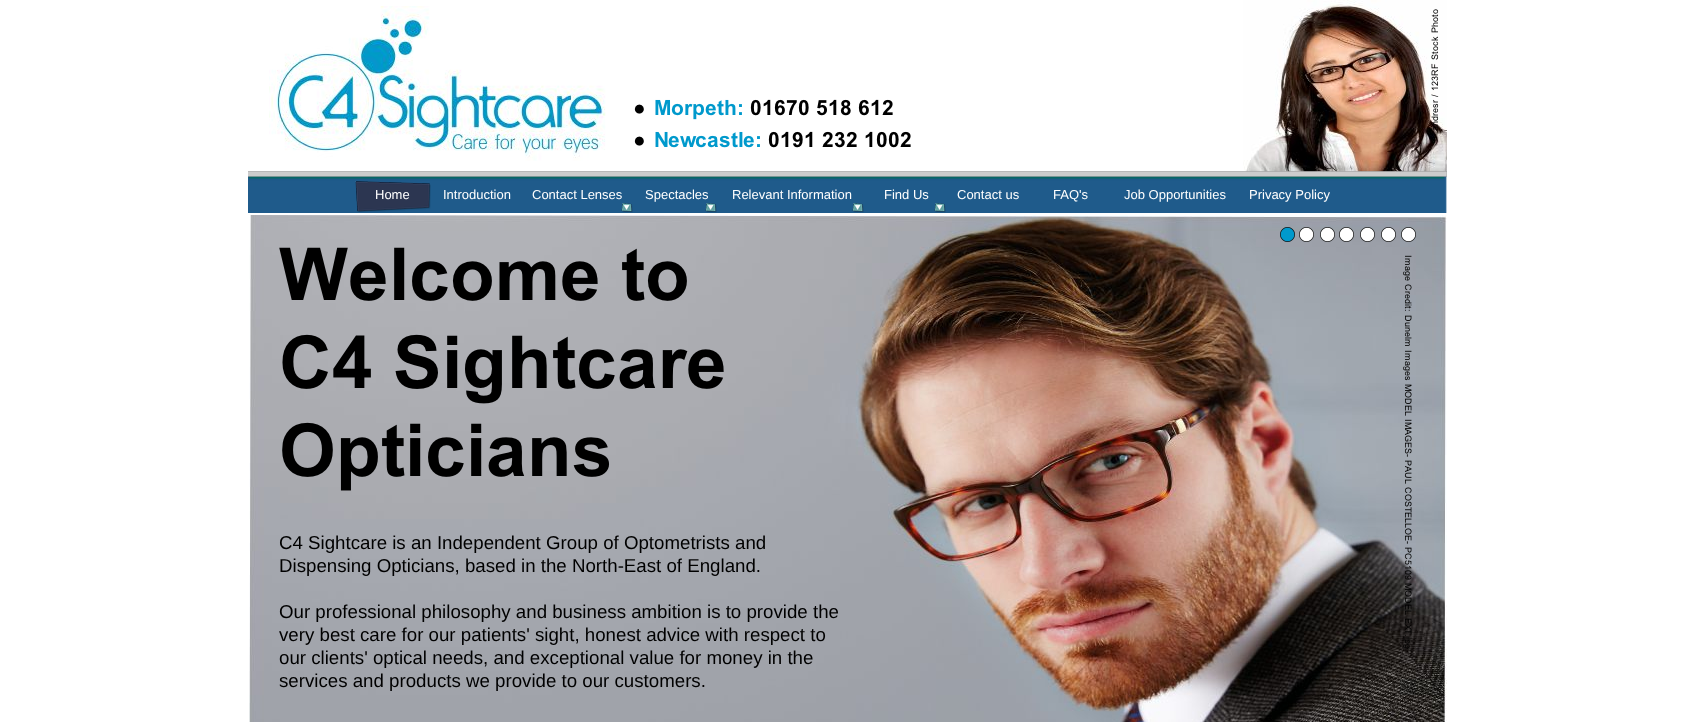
<?xml version="1.0" encoding="UTF-8"?>
<svg xmlns="http://www.w3.org/2000/svg" xmlns:xlink="http://www.w3.org/1999/xlink" width="1695" height="722">
  <rect width="100%" height="100%" fill="#ffffff" />
  <image x="269" y="6" width="337" height="155" xlink:href="image1.png" />
  <image x="1243" y="0" width="204" height="172" xlink:href="image2.png" />
  <image x="634" y="99" width="277" height="49" xlink:href="image3.png" />
  <image x="1431" y="9" width="8" height="122" xlink:href="image4.png" />
  <image x="248" y="171" width="1199" height="42" xlink:href="image5.png" />
  <image x="355" y="181" width="76" height="31" xlink:href="image6.png" />
  <image x="621" y="203" width="12" height="10" xlink:href="image7.png" />
  <image x="705" y="203" width="12" height="10" xlink:href="image8.png" />
  <image x="852" y="203" width="12" height="10" xlink:href="image8.png" />
  <image x="934" y="203" width="12" height="10" xlink:href="image8.png" />
  <image x="249" y="215" width="1198" height="507" xlink:href="image9.png" />
  <image x="1280" y="227" width="15" height="15" xlink:href="image10.png" />
  <image x="1299" y="227" width="15" height="15" xlink:href="image11.png" />
  <image x="1320" y="227" width="15" height="15" xlink:href="image12.png" />
  <image x="1339" y="227" width="15" height="15" xlink:href="image13.png" />
  <image x="1360" y="227" width="15" height="15" xlink:href="image14.png" />
  <image x="1381" y="227" width="15" height="15" xlink:href="image15.png" />
  <image x="1401" y="227" width="15" height="15" xlink:href="image16.png" />
  <image x="279" y="247" width="445" height="244" xlink:href="image17.png" />
  <image x="1403" y="255" width="9" height="394" xlink:href="image18.png" />
  <text x="375" y="199" style="font-family: Liberation Sans; font-size: 13px; fill: #ffffff">Home</text>
  <text x="443" y="199" style="font-family: Liberation Sans; font-size: 13px; fill: #ffffff">Introduction</text>
  <text x="532" y="199" style="font-family: Liberation Sans; font-size: 13px; fill: #ffffff">Contact Lenses</text>
  <text x="645" y="199" style="font-family: Liberation Sans; font-size: 13px; fill: #ffffff">Spectacles</text>
  <text x="732" y="199" style="font-family: Liberation Sans; font-size: 13px; fill: #ffffff">Relevant Information</text>
  <text x="884" y="199" style="font-family: Liberation Sans; font-size: 13px; fill: #ffffff">Find Us</text>
  <text x="957" y="199" style="font-family: Liberation Sans; font-size: 13px; fill: #ffffff">Contact us</text>
  <text x="1053" y="199" style="font-family: Liberation Sans; font-size: 13px; fill: #ffffff">FAQ's</text>
  <text x="1124" y="199" style="font-family: Liberation Sans; font-size: 13px; fill: #ffffff">Job Opportunities</text>
  <text x="1249" y="199" style="font-family: Liberation Sans; font-size: 13px; fill: #ffffff">Privacy Policy</text>
  <text x="279" y="549" style="font-family: Liberation Sans; font-size: 18.7px; fill: #000000">C4 Sightcare is an Independent Group of Optometrists and</text>
  <text x="279" y="572" style="font-family: Liberation Sans; font-size: 18.7px; fill: #000000">Dispensing Opticians, based in the North-East of England.</text>
  <text x="279" y="618" style="font-family: Liberation Sans; font-size: 18.7px; fill: #000000">Our professional philosophy and business ambition is to provide the</text>
  <text x="279" y="641" style="font-family: Liberation Sans; font-size: 18.7px; fill: #000000">very best care for our patients' sight, honest advice with respect to</text>
  <text x="279" y="664" style="font-family: Liberation Sans; font-size: 18.7px; fill: #000000">our clients' optical needs, and exceptional value for money in the</text>
  <text x="279" y="687" style="font-family: Liberation Sans; font-size: 18.7px; fill: #000000">services and products we provide to our customers.</text>
</svg>
